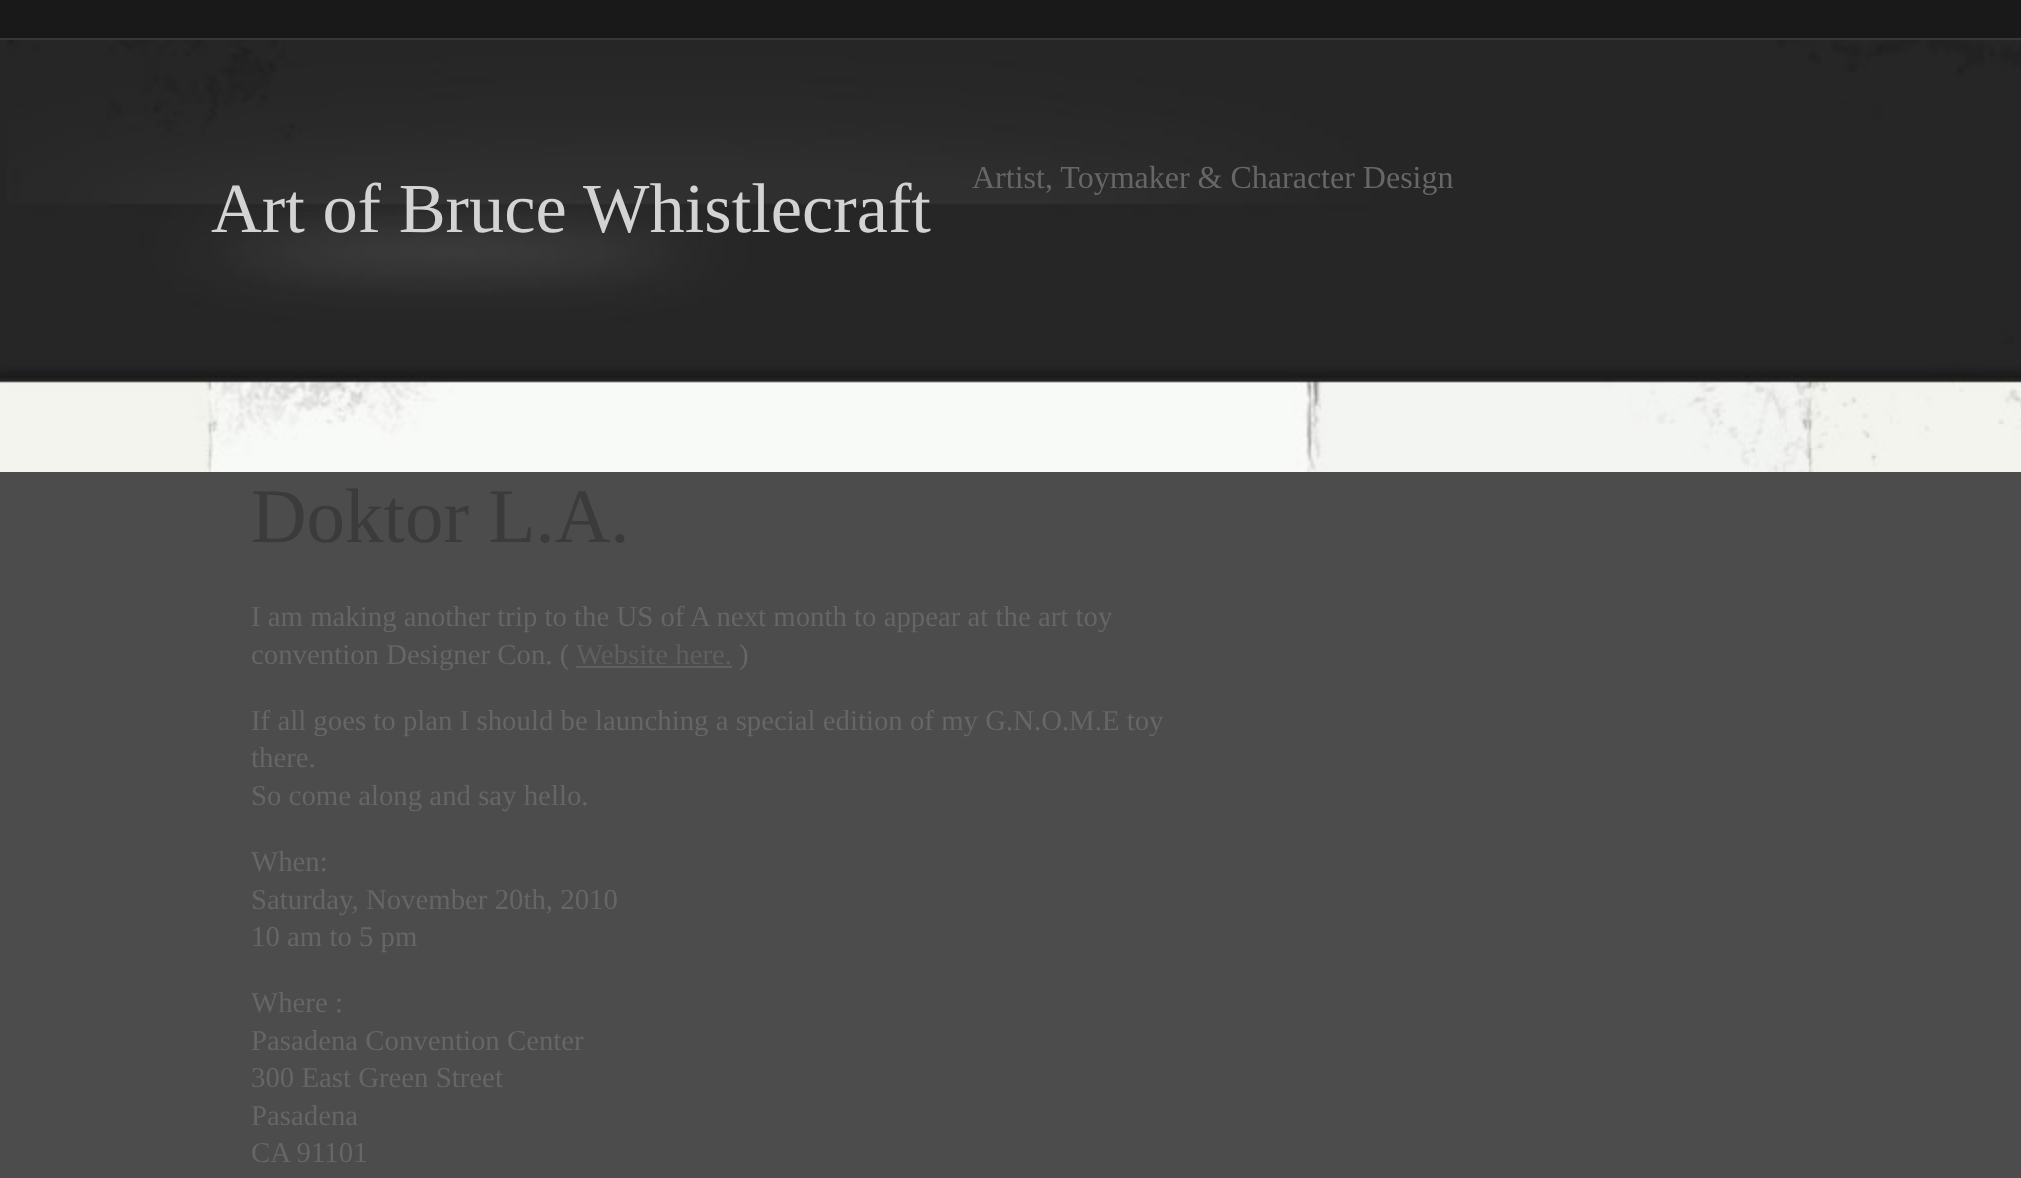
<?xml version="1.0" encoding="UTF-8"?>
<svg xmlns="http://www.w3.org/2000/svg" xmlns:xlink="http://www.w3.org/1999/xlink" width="2021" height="1178">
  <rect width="100%" height="100%" fill="#4c4c4c" />
  <rect width="2021" height="38" fill="#191919" />
  <rect y="38" width="2021" height="2" fill="#373737" />
  <image x="0" y="40" width="7" height="432" xlink:href="image1.png" />
  <image x="7" y="40" width="2014" height="432" xlink:href="image2.png" />
  <rect x="576" y="666" width="156" height="2" fill="#5f5f5f" />
  <text x="211" y="232" style="font-family: Liberation Serif; font-size: 70.4px; fill: #d3d3d3">Art of Bruce Whistlecraft</text>
  <text x="972" y="188" style="font-family: Liberation Serif; font-size: 32px; fill: #666666">Artist, Toymaker &amp; Character Design</text>
  <text x="251" y="542" style="font-family: Liberation Serif; font-size: 77px; fill: #3b3b3b">Doktor L.A.</text>
  <text x="251" y="626" style="font-family: Liberation Serif; font-size: 28.8px; fill: #666666">I am making another trip to the US of A next month to appear at the art toy</text>
  <text x="251" y="664" style="font-family: Liberation Serif; font-size: 28.8px; fill: #666666">convention Designer Con. (</text>
  <text x="576" y="664" style="font-family: Liberation Serif; font-size: 28.8px; fill: #5f5f5f">Website here.</text>
  <text x="739" y="664" style="font-family: Liberation Serif; font-size: 28.8px; fill: #666666">)</text>
  <text x="251" y="730" style="font-family: Liberation Serif; font-size: 28.8px; fill: #666666">If all goes to plan I should be launching a special edition of my G.N.O.M.E toy</text>
  <text x="251" y="767" style="font-family: Liberation Serif; font-size: 28.8px; fill: #666666">there.</text>
  <text x="251" y="805" style="font-family: Liberation Serif; font-size: 28.8px; fill: #666666">So come along and say hello.</text>
  <text x="251" y="871" style="font-family: Liberation Serif; font-size: 28.8px; fill: #666666">When:</text>
  <text x="251" y="909" style="font-family: Liberation Serif; font-size: 28.8px; fill: #666666">Saturday, November 20th, 2010</text>
  <text x="251" y="946" style="font-family: Liberation Serif; font-size: 28.8px; fill: #666666">10 am to 5 pm</text>
  <text x="251" y="1012" style="font-family: Liberation Serif; font-size: 28.8px; fill: #666666">Where :</text>
  <text x="251" y="1050" style="font-family: Liberation Serif; font-size: 28.8px; fill: #666666">Pasadena Convention Center</text>
  <text x="251" y="1087" style="font-family: Liberation Serif; font-size: 28.8px; fill: #666666">300 East Green Street</text>
  <text x="251" y="1125" style="font-family: Liberation Serif; font-size: 28.8px; fill: #666666">Pasadena</text>
  <text x="251" y="1162" style="font-family: Liberation Serif; font-size: 28.8px; fill: #666666">CA 91101</text>
</svg>
